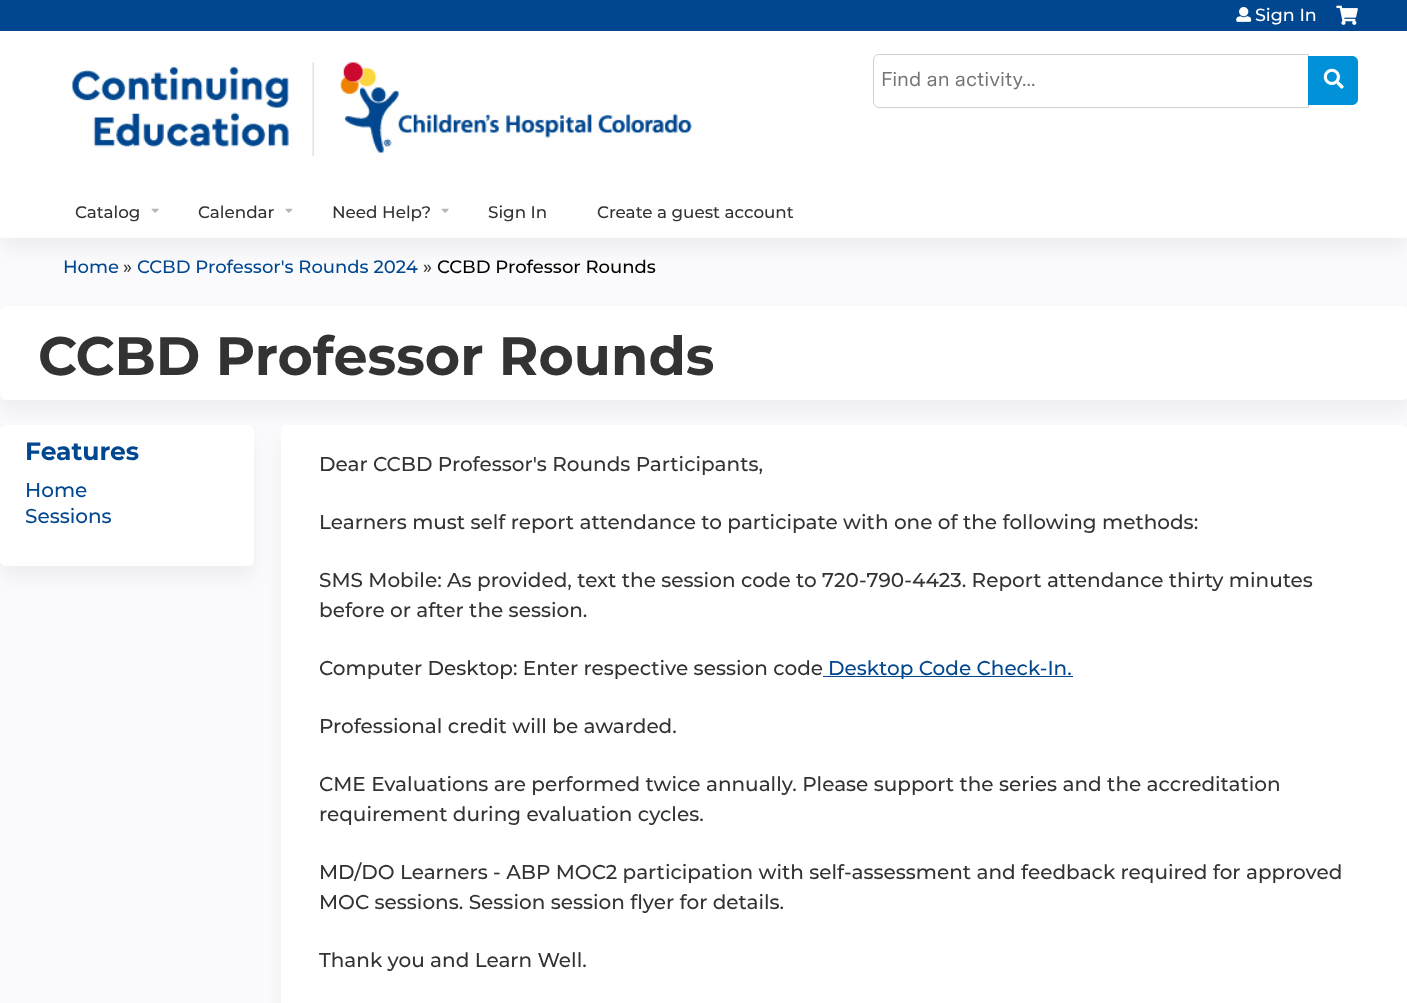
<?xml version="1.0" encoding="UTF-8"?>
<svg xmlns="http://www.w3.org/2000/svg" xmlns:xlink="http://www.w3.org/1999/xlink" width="1407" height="1003">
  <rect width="100%" height="100%" fill="#fbfbfd" />
  <rect y="31" width="1407" height="155" fill="#ffffff" />
  <rect width="1407" height="31" fill="#00478f" />
  <image x="1236" y="7" width="16" height="15" xlink:href="image1.png" />
  <image x="1336" y="5" width="22" height="20" xlink:href="image2.png" />
  <path d="M 879 54.5 h 429.5 v 53 h -429.5 c -3 0 -5.5 -2.5 -5.5 -5.5 v -42 c 0 -3 2.5 -5.5 5.5 -5.5 z" fill="none" stroke="#d1d1d1" />
  <path d="M 1308 56 h 44 c 3.5 0 6 2.5 6 6 v 37 c 0 3.5 -2.5 6 -6 6 h -44 z" fill="#0091d9" />
  <image x="1323" y="68" width="21" height="21" xlink:href="image3.png" />
  <image x="72" y="62" width="620" height="95" xlink:href="image4.png" />
  <rect y="199" width="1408" height="51" fill="#000000" fill-opacity="0.05" filter="blur(9.5px)" />
  <rect y="186" width="1407" height="52" fill="#ffffff" />
  <image x="151" y="208" width="8" height="5" xlink:href="image5.png" />
  <image x="285" y="208" width="8" height="5" xlink:href="image6.png" />
  <image x="441" y="208" width="8" height="5" xlink:href="image5.png" />
  <rect y="319" width="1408" height="94" rx="6" fill="#000000" fill-opacity="0.05" filter="blur(9.5px)" />
  <rect y="306" width="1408" height="94" rx="6" fill="#ffffff" />
  <rect x="281" y="438" width="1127" height="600" rx="6" fill="#000000" fill-opacity="0.05" filter="blur(9.5px)" />
  <rect x="281" y="425" width="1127" height="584" rx="6" fill="#ffffff" />
  <rect y="438" width="254" height="141" rx="6" fill="#000000" fill-opacity="0.05" filter="blur(9.5px)" />
  <rect y="425" width="254" height="141" rx="6" fill="#ffffff" />
  <rect x="823" y="676" width="250" height="1" fill="#00478f" />
  <text x="1255" y="21" style="font-family: Montserrat; font-size: 17.5px; font-weight: 500; fill: #ffffff">Sign In</text>
  <text x="881" y="86" style="font-family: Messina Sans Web; font-size: 20px; fill: #757575">Find an activity...</text>
  <text x="75" y="218" style="font-family: Montserrat; font-size: 16.75px; font-weight: 500; fill: #333333">Catalog</text>
  <text x="198" y="218" style="font-family: Montserrat; font-size: 16.75px; font-weight: 500; fill: #333333">Calendar</text>
  <text x="332" y="218" style="font-family: Montserrat; font-size: 16.75px; font-weight: 500; fill: #333333">Need Help?</text>
  <text x="488" y="218" style="font-family: Montserrat; font-size: 16.75px; font-weight: 500; fill: #333333">Sign In</text>
  <text x="597" y="218" style="font-family: Montserrat; font-size: 16.75px; font-weight: 500; fill: #333333">Create a guest account</text>
  <text x="63" y="273" style="font-family: Montserrat; font-size: 18px; font-weight: 500; fill: #00478f">Home</text>
  <text x="123" y="273" style="font-family: Montserrat; font-size: 18px; font-weight: 500; fill: #333333">»</text>
  <text x="137" y="273" style="font-family: Montserrat; font-size: 18px; font-weight: 500; fill: #00478f">CCBD Professor's Rounds 2024</text>
  <text x="423" y="273" style="font-family: Montserrat; font-size: 18px; font-weight: 500; fill: #333333">»</text>
  <text x="437" y="273" style="font-family: Montserrat; font-size: 18px; font-weight: 500; fill: #000000">CCBD Professor Rounds</text>
  <text x="38" y="375" style="font-family: Montserrat; font-size: 54px; font-weight: bold; fill: #333333">CCBD Professor Rounds</text>
  <text x="25" y="460" style="font-family: Montserrat; font-size: 25px; font-weight: bold; fill: #00478f">Features</text>
  <text x="25" y="497" style="font-family: Montserrat; font-size: 20px; font-weight: 500; fill: #00478f">Home</text>
  <text x="25" y="523" style="font-family: Montserrat; font-size: 20px; font-weight: 500; fill: #00478f">Sessions</text>
  <text x="319" y="471" style="font-family: Montserrat; font-size: 20px; font-weight: 500; fill: #333333">Dear CCBD Professor's Rounds Participants,</text>
  <text x="319" y="529" style="font-family: Montserrat; font-size: 20px; font-weight: 500; fill: #333333">Learners must self report attendance to participate with one of the following methods:</text>
  <text x="319" y="587" style="font-family: Montserrat; font-size: 20px; font-weight: 500; fill: #333333">SMS Mobile: As provided, text the session code to 720-790-4423. Report attendance thirty minutes</text>
  <text x="319" y="617" style="font-family: Montserrat; font-size: 20px; font-weight: 500; fill: #333333">before or after the session.</text>
  <text x="319" y="675" style="font-family: Montserrat; font-size: 20px; font-weight: 500; fill: #333333">Computer Desktop: Enter respective session code</text>
  <text x="828" y="675" style="font-family: Montserrat; font-size: 20px; font-weight: 500; fill: #00478f">Desktop Code Check-In.</text>
  <text x="319" y="733" style="font-family: Montserrat; font-size: 20px; font-weight: 500; fill: #333333">Professional credit will be awarded.</text>
  <text x="319" y="791" style="font-family: Montserrat; font-size: 20px; font-weight: 500; fill: #333333">CME Evaluations are performed twice annually. Please support the series and the accreditation</text>
  <text x="319" y="821" style="font-family: Montserrat; font-size: 20px; font-weight: 500; fill: #333333">requirement during evaluation cycles.</text>
  <text x="319" y="879" style="font-family: Montserrat; font-size: 20px; font-weight: 500; fill: #333333">MD/DO Learners - ABP MOC2 participation with self-assessment and feedback required for approved</text>
  <text x="319" y="909" style="font-family: Montserrat; font-size: 20px; font-weight: 500; fill: #333333">MOC sessions. Session session flyer for details.</text>
  <text x="319" y="967" style="font-family: Montserrat; font-size: 20px; font-weight: 500; fill: #333333">Thank you and Learn Well.</text>
</svg>
